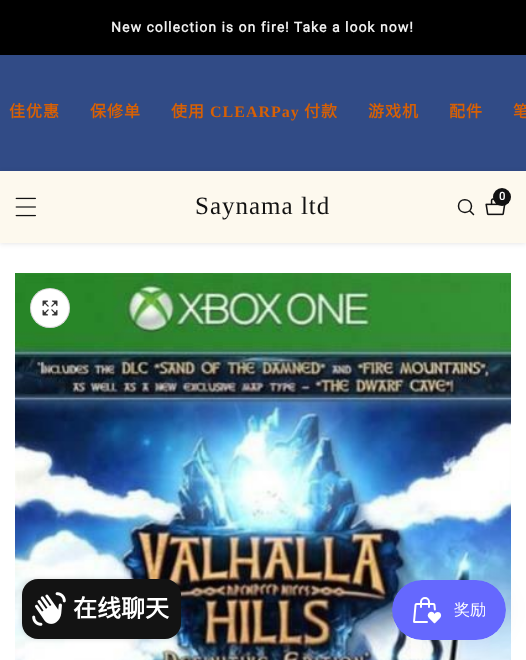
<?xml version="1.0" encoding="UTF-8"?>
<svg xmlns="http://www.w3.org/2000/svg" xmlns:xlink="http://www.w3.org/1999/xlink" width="526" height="660">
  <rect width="100%" height="100%" fill="#ffffff" />
  <rect width="526" height="55" fill="#000000" />
  <rect y="55" width="526" height="116" fill="#314b86" />
  <rect y="172" width="526" height="72" fill="#121212" fill-opacity="0.1" filter="blur(2.5px)" />
  <rect y="171" width="526" height="72" fill="#fdf9ee" />
  <image x="15" y="197" width="21" height="20" xlink:href="image1.png" />
  <image x="485" y="198" width="21" height="18" xlink:href="image2.png" />
  <circle cx="502" cy="197" r="9" fill="#121212" />
  <path d="M 470 211 l 3.5 3.5 m -15 -8.5 c 0 8.5 13 8.5 13 0 c -0.5 -8.5 -13 -8.5 -13 0 z" fill="none" stroke="#121212" stroke-width="1.5" stroke-linecap="round" stroke-linejoin="round" />
  <image x="15" y="273" width="496" height="387" xlink:href="image3.png" />
  <circle cx="50" cy="308" r="20" fill="#ffffff" />
  <circle cx="50" cy="308" r="19.5" fill="none" stroke="#333333" stroke-opacity="0.2" />
  <image x="42" y="300" width="16" height="16" xlink:href="image4.png" />
  <rect x="22" y="579" width="159" height="60" rx="16" fill="#000000" fill-opacity="0.15" filter="blur(2.5px)" />
  <rect x="22" y="579" width="159" height="60" rx="16" fill="#131313" />
  <image x="32" y="592" width="34" height="34" xlink:href="image5.png" />
  <rect x="392" y="580" width="114" height="60" rx="30" fill="#000000" fill-opacity="0.05" filter="blur(12.5px)" />
  <image x="392" y="580" width="114" height="60" xlink:href="image6.png" />
  <text x="111" y="32" style="font-family: Roboto; font-size: 14px; font-weight: bold; letter-spacing: 1px; fill: #f0f0f0">New collection is on fire! Take a look now!</text>
  <text x="9" y="117" style="font-family: Noto Sans CJK SC; font-size: 16px; font-weight: bold; letter-spacing: 1px; fill: #d76004">佳优惠</text>
  <text x="90" y="117" style="font-family: Noto Sans CJK SC; font-size: 16px; font-weight: bold; letter-spacing: 1px; fill: #d76004">保修单</text>
  <text x="171" y="117" style="font-family: Noto Sans CJK SC; font-size: 16px; font-weight: bold; letter-spacing: 1px; fill: #d76004">使用</text>
  <text x="210" y="117" style="font-family: Liberation Serif; font-size: 16px; font-weight: bold; letter-spacing: 1px; fill: #d76004">CLEARPay</text>
  <text x="304" y="117" style="font-family: Noto Sans CJK SC; font-size: 16px; font-weight: bold; letter-spacing: 1px; fill: #d76004">付款</text>
  <text x="368" y="117" style="font-family: Noto Sans CJK SC; font-size: 16px; font-weight: bold; letter-spacing: 1px; fill: #d76004">游戏机</text>
  <text x="449" y="117" style="font-family: Noto Sans CJK SC; font-size: 16px; font-weight: bold; letter-spacing: 1px; fill: #d76004">配件</text>
  <text x="513" y="117" style="font-family: Noto Sans CJK SC; font-size: 16px; font-weight: bold; letter-spacing: 1px; fill: #d76004">笔</text>
  <text x="195" y="214" style="font-family: Liberation Serif; font-size: 25px; letter-spacing: 1px; fill: #121212">Saynama ltd</text>
  <text x="499" y="200" style="font-family: Roboto; font-size: 11px; font-weight: bold; fill: #ffffff">0</text>
  <text x="73" y="617" style="font-family: Noto Sans CJK SC; font-size: 24px; font-weight: bold; fill: #ffffff">在线聊天</text>
</svg>
